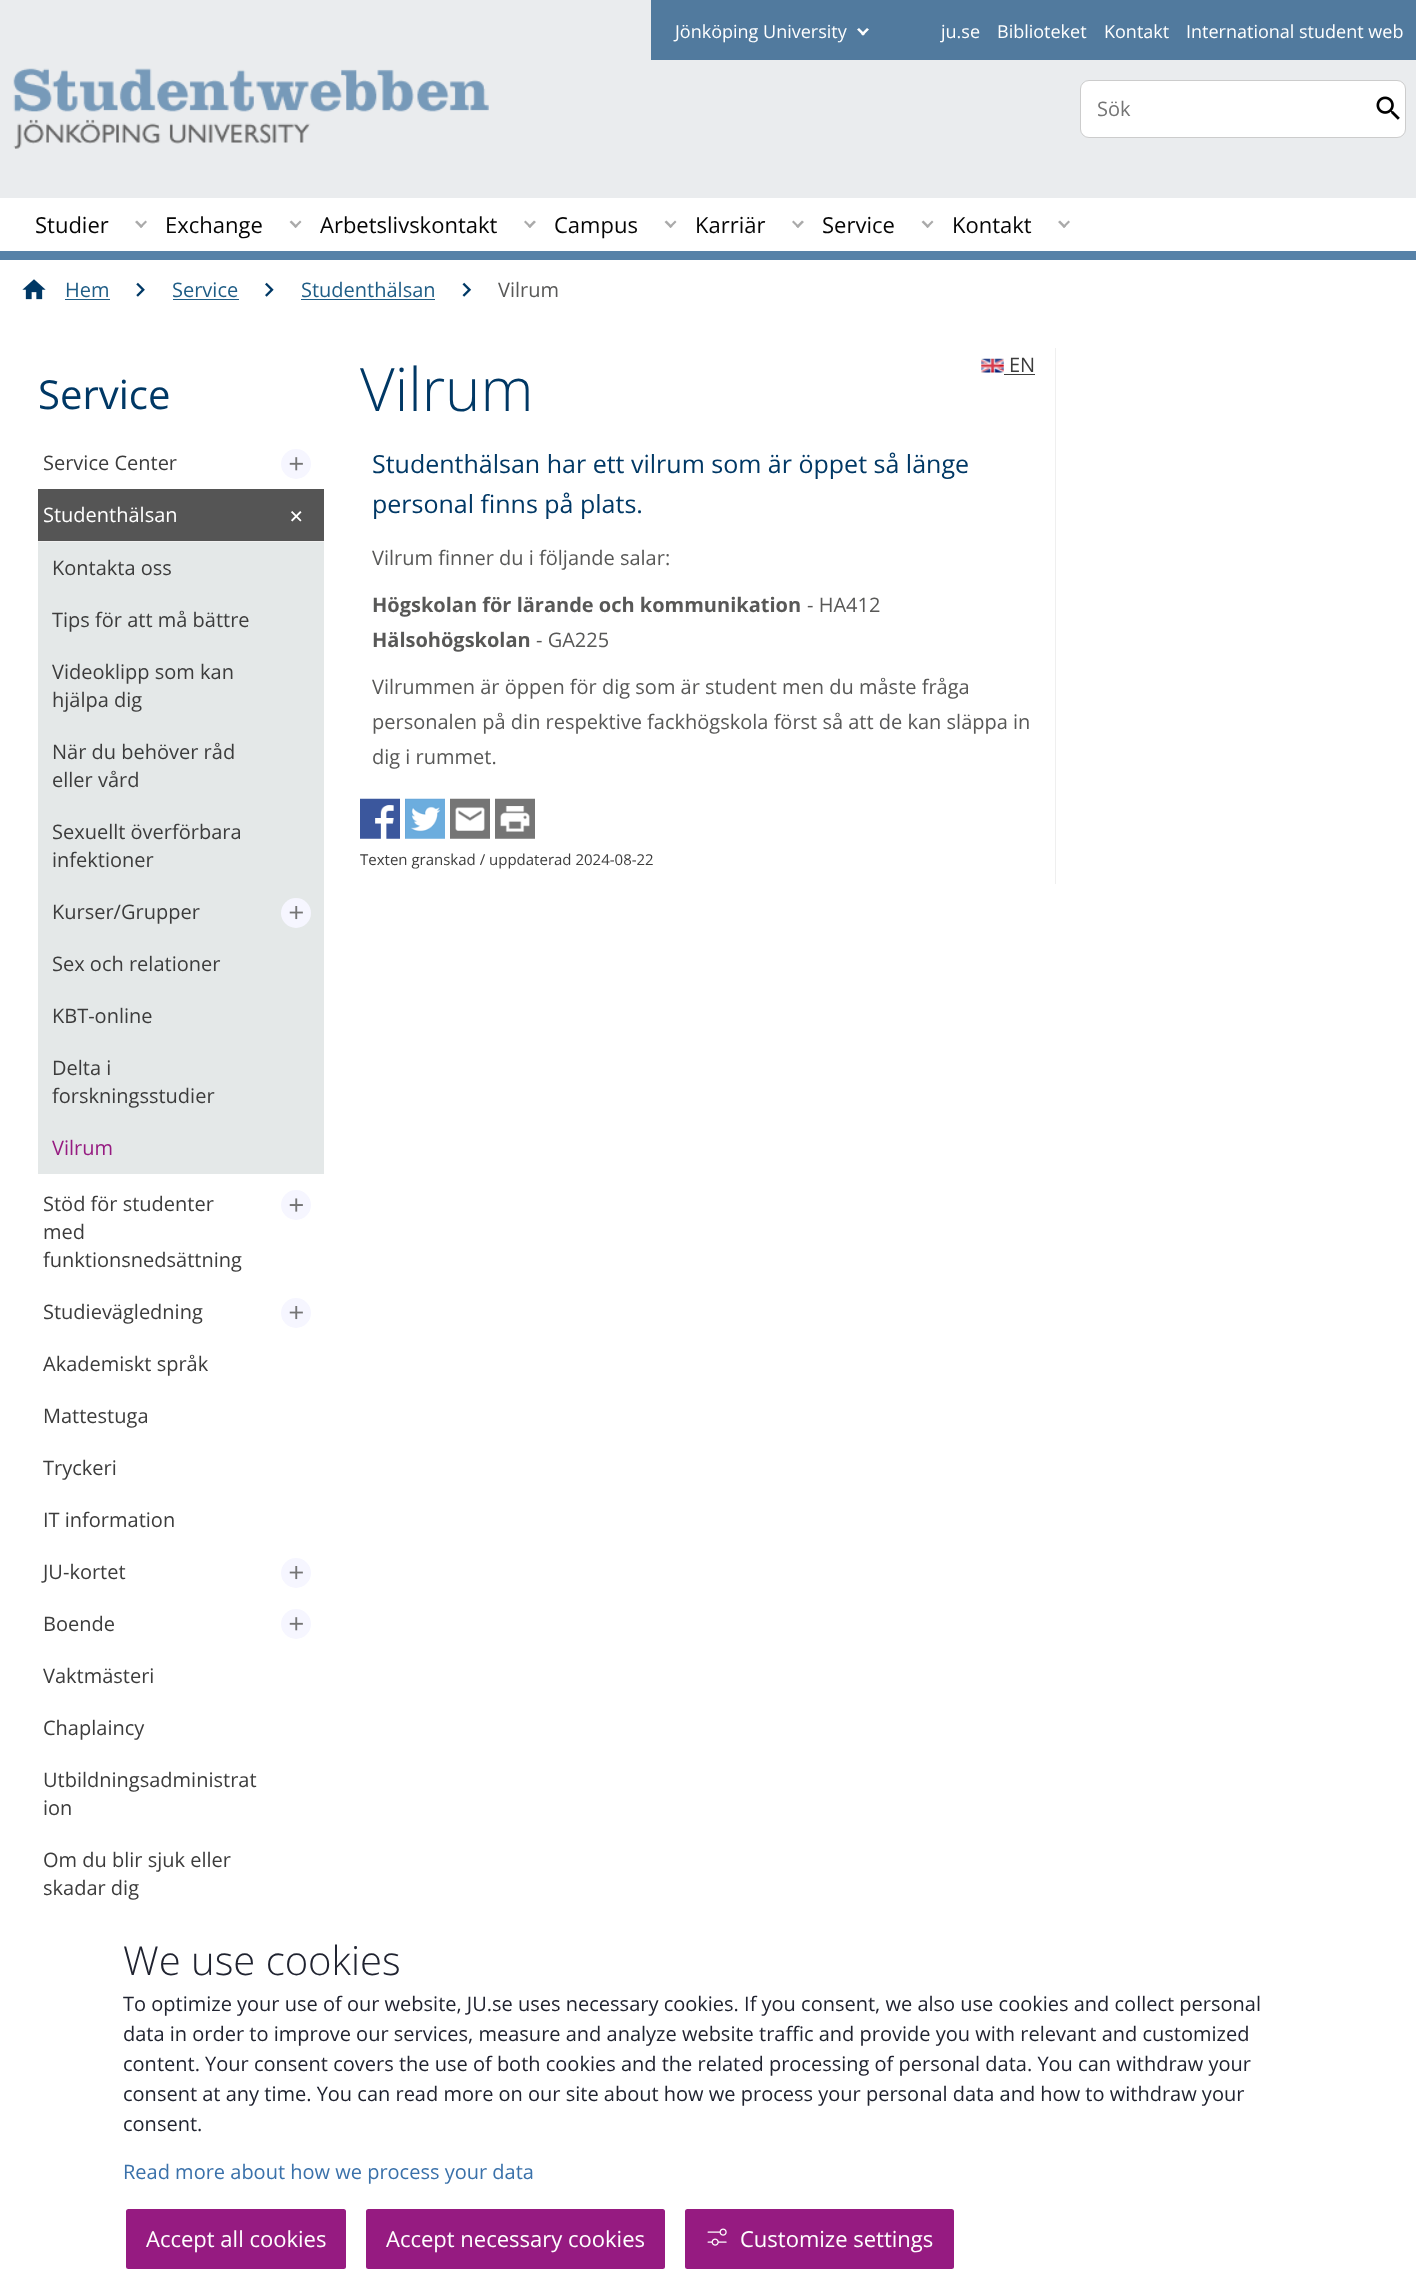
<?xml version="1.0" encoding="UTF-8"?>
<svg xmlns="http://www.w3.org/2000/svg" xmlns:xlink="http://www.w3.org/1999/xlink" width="1416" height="2296">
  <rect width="100%" height="100%" fill="#eaecee" />
  <rect y="251" width="1416" height="9" fill="#5782a8" />
  <rect x="651" width="765" height="60" fill="#517a9e" />
  <path d="M 861 34 l 6 -6 l 2 1.5 l -6 6 z" fill="#ffffff" />
  <path d="M 857 29.5 l 2 -1.5 l 6 6 l -2 1.5 z" fill="#ffffff" />
  <image x="13" y="68" width="476" height="81" xlink:href="image1.png" />
  <rect x="1080.5" y="80.5" width="325" height="57" rx="8.5" fill="#ffffff" stroke="#cccccc" />
  <image x="1376" y="96" width="24" height="24" xlink:href="image2.png" />
  <rect y="198" width="1416" height="53" fill="#ffffff" />
  <path d="M 139.5 226.5 l 6 -6 l 1.5 1.5 l -6 6 z" fill="#aaaaaa" />
  <path d="M 135 222 l 2 -1.5 l 6 6 l -2 1.5 z" fill="#aaaaaa" />
  <path d="M 294 226.5 l 6 -6 l 1.5 1.5 l -6 6 z" fill="#aaaaaa" />
  <path d="M 289.5 222 l 2 -1.5 l 6 6 l -2 1.5 z" fill="#aaaaaa" />
  <path d="M 528 226.5 l 6 -6 l 2 1.5 l -6 6 z" fill="#aaaaaa" />
  <path d="M 524 222 l 1.5 -1.5 l 6 6 l -1.5 1.5 z" fill="#aaaaaa" />
  <path d="M 669 226.5 l 6 -6 l 1.5 1.5 l -6 6 z" fill="#aaaaaa" />
  <path d="M 664.5 222 l 2 -1.5 l 6 6 l -2 1.5 z" fill="#aaaaaa" />
  <path d="M 796 226.5 l 6 -6 l 2 1.5 l -6 6 z" fill="#aaaaaa" />
  <path d="M 792 222 l 1.5 -1.5 l 6 6 l -1.5 1.5 z" fill="#aaaaaa" />
  <path d="M 926 226.5 l 6 -6 l 1.5 1.5 l -6 6 z" fill="#aaaaaa" />
  <path d="M 921.5 222 l 2 -1.5 l 6 6 l -2 1.5 z" fill="#aaaaaa" />
  <path d="M 1062.5 226.5 l 6 -6 l 1.5 1.5 l -6 6 z" fill="#aaaaaa" />
  <path d="M 1058 222 l 2 -1.5 l 6 6 l -2 1.5 z" fill="#aaaaaa" />
  <rect y="260" width="1416" height="2036" fill="#ffffff" />
  <image x="22" y="279" width="24" height="21" xlink:href="image3.png" />
  <rect x="65" y="299" width="45" height="1" fill="#1f5d86" />
  <image x="136" y="282" width="9" height="15" xlink:href="image4.png" />
  <rect x="173" y="299" width="66" height="1" fill="#1f5d86" />
  <image x="265" y="282" width="9" height="15" xlink:href="image5.png" />
  <rect x="301" y="299" width="134" height="1" fill="#1f5d86" />
  <image x="462" y="282" width="10" height="15" xlink:href="image6.png" />
  <circle cx="296" cy="464" r="15" fill="#f6f6ff" />
  <image x="289" y="457" width="14" height="14" xlink:href="image7.png" />
  <rect x="38" y="489" width="286" height="52" fill="#555555" />
  <image x="291" y="511" width="11" height="11" xlink:href="image8.png" />
  <rect x="38" y="542" width="286" height="632" fill="#e4e8e8" />
  <rect x="38" y="541" width="286" height="1" fill="#f0f0f0" />
  <circle cx="296" cy="913" r="15" fill="#f6f6ff" />
  <image x="289" y="906" width="14" height="14" xlink:href="image9.png" />
  <circle cx="296" cy="1205" r="15" fill="#f6f6ff" />
  <image x="289" y="1198" width="14" height="14" xlink:href="image10.png" />
  <circle cx="296" cy="1313" r="15" fill="#f6f6ff" />
  <image x="289" y="1306" width="14" height="14" xlink:href="image9.png" />
  <circle cx="296" cy="1573" r="15" fill="#f6f6ff" />
  <image x="289" y="1566" width="14" height="14" xlink:href="image9.png" />
  <circle cx="296" cy="1624" r="15" fill="#f6f6ff" />
  <image x="289" y="1617" width="14" height="14" xlink:href="image7.png" />
  <rect x="1055" y="348" width="1" height="536" fill="#efefef" />
  <image x="981" y="358" width="23" height="15" xlink:href="image11.png" />
  <rect x="1004" y="374" width="31" height="1" fill="#3c3c3c" />
  <image x="360" y="798" width="40" height="41" xlink:href="image12.png" />
  <image x="405" y="798" width="40" height="41" xlink:href="image13.png" />
  <image x="450" y="798" width="40" height="41" xlink:href="image14.png" />
  <image x="495" y="798" width="40" height="41" xlink:href="image15.png" />
  <rect x="126" y="2209" width="220" height="60" rx="2.5" fill="#961b81" />
  <rect x="366" y="2209" width="299" height="60" rx="2.5" fill="#961b81" />
  <rect x="685" y="2209" width="269" height="60" rx="2.5" fill="#961b81" />
  <image x="707" y="2228" width="20" height="18" xlink:href="image16.png" />
  <text x="675" y="38" style="font-family: Open Sans; font-size: 18px; fill: #ffffff">Jönköping University</text>
  <text x="941" y="38" style="font-family: Open Sans; font-size: 18px; fill: #ffffff">ju.se</text>
  <text x="997" y="38" style="font-family: Open Sans; font-size: 18px; fill: #ffffff">Biblioteket</text>
  <text x="1104" y="38" style="font-family: Open Sans; font-size: 18px; fill: #ffffff">Kontakt</text>
  <text x="1186" y="38" style="font-family: Open Sans; font-size: 18px; fill: #ffffff">International student web</text>
  <text x="1097" y="116" style="font-family: Open Sans; font-size: 20px; fill: #757575">Sök</text>
  <text x="35" y="233" style="font-family: Open Sans; font-size: 22px; fill: #050505">Studier</text>
  <text x="165" y="233" style="font-family: Open Sans; font-size: 22px; fill: #050505">Exchange</text>
  <text x="320" y="233" style="font-family: Open Sans; font-size: 22px; fill: #050505">Arbetslivskontakt</text>
  <text x="554" y="233" style="font-family: Open Sans; font-size: 22px; fill: #050505">Campus</text>
  <text x="695" y="233" style="font-family: Open Sans; font-size: 22px; fill: #050505">Karriär</text>
  <text x="822" y="233" style="font-family: Open Sans; font-size: 22px; fill: #050505">Service</text>
  <text x="952" y="233" style="font-family: Open Sans; font-size: 22px; fill: #050505">Kontakt</text>
  <text x="65" y="297" style="font-family: Open Sans; font-size: 20px; fill: #1f5d86">Hem</text>
  <text x="172" y="297" style="font-family: Open Sans; font-size: 20px; fill: #1f5d86">Service</text>
  <text x="301" y="297" style="font-family: Open Sans; font-size: 20px; fill: #1f5d86">Studenthälsan</text>
  <text x="498" y="297" style="font-family: Open Sans; font-size: 20px; fill: #585857">Vilrum</text>
  <text x="38" y="409" style="font-family: Open Sans; font-size: 40px; fill: #003865">Service</text>
  <text x="43" y="470" style="font-family: Open Sans; font-size: 20px; fill: #3c3c3c">Service Center</text>
  <text x="43" y="522" style="font-family: Open Sans; font-size: 20px; fill: #ffffff">Studenthälsan</text>
  <text x="52" y="575" style="font-family: Open Sans; font-size: 20px; fill: #3c3c3c">Kontakta oss</text>
  <text x="52" y="627" style="font-family: Open Sans; font-size: 20px; fill: #3c3c3c">Tips för att må bättre</text>
  <text x="52" y="679" style="font-family: Open Sans; font-size: 20px; fill: #3c3c3c">Videoklipp som kan</text>
  <text x="52" y="707" style="font-family: Open Sans; font-size: 20px; fill: #3c3c3c">hjälpa dig</text>
  <text x="52" y="759" style="font-family: Open Sans; font-size: 20px; fill: #3c3c3c">När du behöver råd</text>
  <text x="52" y="787" style="font-family: Open Sans; font-size: 20px; fill: #3c3c3c">eller vård</text>
  <text x="52" y="839" style="font-family: Open Sans; font-size: 20px; fill: #3c3c3c">Sexuellt överförbara</text>
  <text x="52" y="867" style="font-family: Open Sans; font-size: 20px; fill: #3c3c3c">infektioner</text>
  <text x="52" y="919" style="font-family: Open Sans; font-size: 20px; fill: #3c3c3c">Kurser/Grupper</text>
  <text x="52" y="971" style="font-family: Open Sans; font-size: 20px; fill: #3c3c3c">Sex och relationer</text>
  <text x="52" y="1023" style="font-family: Open Sans; font-size: 20px; fill: #3c3c3c">KBT-online</text>
  <text x="52" y="1075" style="font-family: Open Sans; font-size: 20px; fill: #3c3c3c">Delta i</text>
  <text x="52" y="1103" style="font-family: Open Sans; font-size: 20px; fill: #3c3c3c">forskningsstudier</text>
  <text x="52" y="1155" style="font-family: Open Sans; font-size: 20px; fill: #961b81">Vilrum</text>
  <text x="43" y="1211" style="font-family: Open Sans; font-size: 20px; fill: #3c3c3c">Stöd för studenter</text>
  <text x="43" y="1239" style="font-family: Open Sans; font-size: 20px; fill: #3c3c3c">med</text>
  <text x="43" y="1267" style="font-family: Open Sans; font-size: 20px; fill: #3c3c3c">funktionsnedsättning</text>
  <text x="43" y="1319" style="font-family: Open Sans; font-size: 20px; fill: #3c3c3c">Studievägledning</text>
  <text x="43" y="1371" style="font-family: Open Sans; font-size: 20px; fill: #3c3c3c">Akademiskt språk</text>
  <text x="43" y="1423" style="font-family: Open Sans; font-size: 20px; fill: #3c3c3c">Mattestuga</text>
  <text x="43" y="1475" style="font-family: Open Sans; font-size: 20px; fill: #3c3c3c">Tryckeri</text>
  <text x="43" y="1527" style="font-family: Open Sans; font-size: 20px; fill: #3c3c3c">IT information</text>
  <text x="43" y="1579" style="font-family: Open Sans; font-size: 20px; fill: #3c3c3c">JU-kortet</text>
  <text x="43" y="1631" style="font-family: Open Sans; font-size: 20px; fill: #3c3c3c">Boende</text>
  <text x="43" y="1683" style="font-family: Open Sans; font-size: 20px; fill: #3c3c3c">Vaktmästeri</text>
  <text x="43" y="1735" style="font-family: Open Sans; font-size: 20px; fill: #3c3c3c">Chaplaincy</text>
  <text x="43" y="1787" style="font-family: Open Sans; font-size: 20px; fill: #3c3c3c">Utbildningsadministrat</text>
  <text x="43" y="1815" style="font-family: Open Sans; font-size: 20px; fill: #3c3c3c">ion</text>
  <text x="43" y="1867" style="font-family: Open Sans; font-size: 20px; fill: #3c3c3c">Om du blir sjuk eller</text>
  <text x="43" y="1895" style="font-family: Open Sans; font-size: 20px; fill: #3c3c3c">skadar dig</text>
  <text x="1009" y="372" style="font-family: Open Sans; font-size: 20px; fill: #3c3c3c">EN</text>
  <text x="360" y="411" style="font-family: Open Sans; font-size: 60px; font-weight: 300; fill: #003865">Vilrum</text>
  <text x="372" y="473" style="font-family: Open Sans; font-size: 25px; fill: #003865">Studenthälsan har ett vilrum som är öppet så länge</text>
  <text x="372" y="513" style="font-family: Open Sans; font-size: 25px; fill: #003865">personal finns på plats.</text>
  <text x="372" y="565" style="font-family: Open Sans; font-size: 20px; fill: #585857">Vilrum finner du i följande salar:</text>
  <text x="372" y="612" style="font-family: Open Sans; font-size: 20px; font-weight: bold; fill: #585857">Högskolan för lärande och kommunikation</text>
  <text x="807" y="612" style="font-family: Open Sans; font-size: 20px; fill: #585857">- HA412</text>
  <text x="372" y="647" style="font-family: Open Sans; font-size: 20px; font-weight: bold; fill: #585857">Hälsohögskolan</text>
  <text x="536" y="647" style="font-family: Open Sans; font-size: 20px; fill: #585857">- GA225</text>
  <text x="372" y="694" style="font-family: Open Sans; font-size: 20px; fill: #585857">Vilrummen är öppen för dig som är student men du måste fråga</text>
  <text x="372" y="729" style="font-family: Open Sans; font-size: 20px; fill: #585857">personalen på din respektive fackhögskola först så att de kan släppa in</text>
  <text x="372" y="764" style="font-family: Open Sans; font-size: 20px; fill: #585857">dig i rummet.</text>
  <text x="360" y="865" style="font-family: Open Sans; font-size: 15px; fill: #3c3c3c">Texten granskad / uppdaterad 2024-08-22</text>
  <text x="123" y="1975" style="font-family: Open Sans; font-size: 40px; font-weight: 300; fill: #202330">We use cookies</text>
  <text x="123" y="2011" style="font-family: Open Sans; font-size: 20px; fill: #202330">To optimize your use of our website, JU.se uses necessary cookies. If you consent, we also use cookies and collect personal</text>
  <text x="123" y="2041" style="font-family: Open Sans; font-size: 20px; fill: #202330">data in order to improve our services, measure and analyze website traffic and provide you with relevant and customized</text>
  <text x="123" y="2071" style="font-family: Open Sans; font-size: 20px; fill: #202330">content. Your consent covers the use of both cookies and the related processing of personal data. You can withdraw your</text>
  <text x="123" y="2101" style="font-family: Open Sans; font-size: 20px; fill: #202330">consent at any time. You can read more on our site about how we process your personal data and how to withdraw your</text>
  <text x="123" y="2131" style="font-family: Open Sans; font-size: 20px; fill: #202330">consent.</text>
  <text x="123" y="2179" style="font-family: Open Sans; font-size: 20px; fill: #3a71aa">Read more about how we process your data</text>
  <text x="146" y="2247" style="font-family: Open Sans; font-size: 22px; fill: #ffffff">Accept all cookies</text>
  <text x="386" y="2247" style="font-family: Open Sans; font-size: 22px; fill: #ffffff">Accept necessary cookies</text>
  <text x="740" y="2247" style="font-family: Open Sans; font-size: 22px; fill: #ffffff">Customize settings</text>
</svg>
